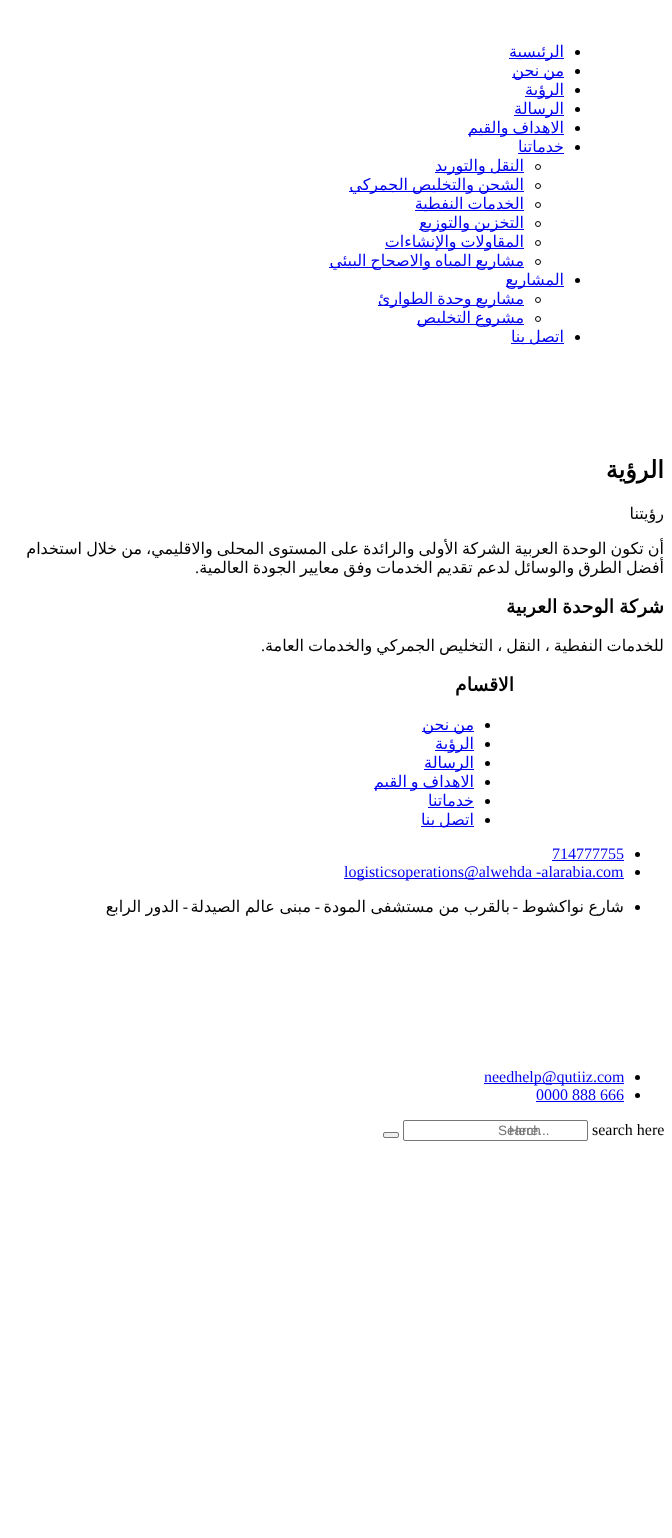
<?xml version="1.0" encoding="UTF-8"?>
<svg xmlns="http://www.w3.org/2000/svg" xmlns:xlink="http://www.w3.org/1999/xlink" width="672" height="1538">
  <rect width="100%" height="100%" fill="#ffffff" />
  <circle cx="577.5" cy="52.5" r="2.5" fill="#000000" />
  <rect x="509" y="58" width="55" height="1" fill="#0000ee" />
  <circle cx="577.5" cy="71.5" r="2.5" fill="#000000" />
  <rect x="512" y="77" width="52" height="1" fill="#0000ee" />
  <circle cx="577.5" cy="90.5" r="2.5" fill="#000000" />
  <rect x="525" y="96" width="39" height="1" fill="#0000ee" />
  <circle cx="577.5" cy="109.5" r="2.5" fill="#000000" />
  <rect x="514" y="115" width="50" height="1" fill="#0000ee" />
  <circle cx="577.5" cy="128.5" r="2.5" fill="#000000" />
  <rect x="468" y="134" width="96" height="1" fill="#0000ee" />
  <circle cx="577.5" cy="147.5" r="2.5" fill="#000000" />
  <rect x="518" y="153" width="46" height="1" fill="#0000ee" />
  <circle cx="538" cy="167" r="2.5" fill="none" stroke="#000000" />
  <rect x="435" y="172" width="89" height="1" fill="#0000ee" />
  <circle cx="538" cy="186" r="2.5" fill="none" stroke="#000000" />
  <rect x="349" y="191" width="175" height="1" fill="#0000ee" />
  <circle cx="538" cy="205" r="2.5" fill="none" stroke="#000000" />
  <rect x="415" y="210" width="109" height="1" fill="#0000ee" />
  <circle cx="538" cy="224" r="2.5" fill="none" stroke="#000000" />
  <rect x="419" y="229" width="105" height="1" fill="#0000ee" />
  <circle cx="538" cy="243" r="2.5" fill="none" stroke="#000000" />
  <rect x="385" y="248" width="139" height="1" fill="#0000ee" />
  <circle cx="538" cy="262" r="2.5" fill="none" stroke="#000000" />
  <rect x="329" y="267" width="195" height="1" fill="#0000ee" />
  <circle cx="577.5" cy="280.5" r="2.5" fill="#000000" />
  <rect x="506" y="286" width="58" height="1" fill="#0000ee" />
  <circle cx="538" cy="300" r="2.5" fill="none" stroke="#000000" />
  <rect x="378" y="305" width="146" height="1" fill="#0000ee" />
  <circle cx="538" cy="319" r="2.5" fill="none" stroke="#000000" />
  <rect x="417" y="324" width="107" height="1" fill="#0000ee" />
  <circle cx="577.5" cy="337.5" r="2.5" fill="#000000" />
  <rect x="511" y="343" width="53" height="1" fill="#0000ee" />
  <circle cx="487.5" cy="725.5" r="2.5" fill="#000000" />
  <rect x="422" y="731" width="52" height="1" fill="#0000ee" />
  <circle cx="487.5" cy="744.5" r="2.5" fill="#000000" />
  <rect x="435" y="750" width="39" height="1" fill="#0000ee" />
  <circle cx="487.5" cy="763.5" r="2.5" fill="#000000" />
  <rect x="424" y="769" width="50" height="1" fill="#0000ee" />
  <circle cx="487.5" cy="782.5" r="2.5" fill="#000000" />
  <rect x="374" y="788" width="100" height="1" fill="#0000ee" />
  <circle cx="487.5" cy="801.5" r="2.5" fill="#000000" />
  <rect x="428" y="807" width="46" height="1" fill="#0000ee" />
  <circle cx="487.5" cy="820.5" r="2.5" fill="#000000" />
  <rect x="421" y="826" width="53" height="1" fill="#0000ee" />
  <circle cx="637.5" cy="854.5" r="2.5" fill="#000000" />
  <rect x="552" y="860" width="72" height="1" fill="#0000ee" />
  <circle cx="637.5" cy="872.5" r="2.5" fill="#000000" />
  <rect x="344" y="878" width="280" height="1" fill="#0000ee" />
  <circle cx="637.5" cy="907.5" r="2.5" fill="#000000" />
  <circle cx="637.5" cy="1077.5" r="2.5" fill="#000000" />
  <rect x="484" y="1083" width="140" height="1" fill="#0000ee" />
  <circle cx="637.5" cy="1095.5" r="2.5" fill="#000000" />
  <rect x="536" y="1101" width="88" height="1" fill="#0000ee" />
  <rect x="403.5" y="1120.5" width="184" height="20" rx="1.5" fill="none" stroke="#767676" />
  <rect x="383.5" y="1132.5" width="15" height="5" rx="1.5" fill="#efefef" stroke="#767676" />
  <text x="564" y="57" style="font-family: DejaVu Sans; font-size: 16px; direction: rtl; fill: #0000ee">الرئيسية</text>
  <text x="564" y="76" word-spacing="-1.1" style="font-family: DejaVu Sans; font-size: 16px; direction: rtl; fill: #0000ee">من نحن</text>
  <text x="564" y="95" style="font-family: DejaVu Sans; font-size: 16px; direction: rtl; fill: #0000ee">الرؤية</text>
  <text x="564" y="114" style="font-family: DejaVu Sans; font-size: 16px; direction: rtl; fill: #0000ee">الرسالة</text>
  <text x="564" y="133" word-spacing="-1.1" style="font-family: DejaVu Sans; font-size: 16px; direction: rtl; fill: #0000ee">الاهداف والقيم</text>
  <text x="564" y="152" style="font-family: DejaVu Sans; font-size: 16px; direction: rtl; fill: #0000ee">خدماتنا</text>
  <text x="524" y="171" word-spacing="-1.1" style="font-family: DejaVu Sans; font-size: 16px; direction: rtl; fill: #0000ee">النقل والتوريد</text>
  <text x="524" y="190" word-spacing="-1.1" style="font-family: DejaVu Sans; font-size: 16px; direction: rtl; fill: #0000ee">الشحن والتخليص الجمركي</text>
  <text x="524" y="209" word-spacing="-1.1" style="font-family: DejaVu Sans; font-size: 16px; direction: rtl; fill: #0000ee">الخدمات النفطية</text>
  <text x="524" y="228" word-spacing="-1.1" style="font-family: DejaVu Sans; font-size: 16px; direction: rtl; fill: #0000ee">التخزين والتوزيع</text>
  <text x="524" y="247" word-spacing="-1.1" style="font-family: DejaVu Sans; font-size: 16px; direction: rtl; fill: #0000ee">المقاولات والإنشاءات</text>
  <text x="524" y="266" word-spacing="-1.1" style="font-family: DejaVu Sans; font-size: 16px; direction: rtl; fill: #0000ee">مشاريع المياه والاصحاح البيئي</text>
  <text x="564" y="285" style="font-family: DejaVu Sans; font-size: 16px; direction: rtl; fill: #0000ee">المشاريع</text>
  <text x="524" y="304" word-spacing="-1.1" style="font-family: DejaVu Sans; font-size: 16px; direction: rtl; fill: #0000ee">مشاريع وحدة الطوارئ</text>
  <text x="524" y="323" word-spacing="-1.1" style="font-family: DejaVu Sans; font-size: 16px; direction: rtl; fill: #0000ee">مشروع التخليص</text>
  <text x="564" y="342" word-spacing="-1.1" style="font-family: DejaVu Sans; font-size: 16px; direction: rtl; fill: #0000ee">اتصل بنا</text>
  <text x="664" y="478" style="font-family: DejaVu Sans; font-size: 24px; font-weight: bold; direction: rtl; fill: #000000">الرؤية</text>
  <text x="664" y="519" style="font-family: DejaVu Sans; font-size: 16px; direction: rtl; fill: #000000">رؤيتنا</text>
  <text x="664" y="554" word-spacing="-1.1" style="font-family: DejaVu Sans; font-size: 16px; direction: rtl; fill: #000000">أن تكون الوحدة العربية الشركة الأولى والرائدة على المستوى المحلى والاقليمي، من خلال</text>
  <text x="82" y="554" style="font-family: DejaVu Sans; font-size: 16px; direction: rtl; fill: #000000">استخدام</text>
  <text x="664" y="573" word-spacing="-1.1" style="font-family: DejaVu Sans; font-size: 16px; direction: rtl; fill: #000000">أفضل الطرق والوسائل لدعم تقديم الخدمات وفق معايير الجودة العالمية</text>
  <text x="199" y="573" style="font-family: Liberation Serif; font-size: 16px; direction: rtl; fill: #000000">.</text>
  <text x="664" y="613" word-spacing="-1" style="font-family: DejaVu Sans; font-size: 18.75px; font-weight: bold; direction: rtl; fill: #000000">شركة الوحدة العربية</text>
  <text x="664" y="651" word-spacing="-1.1" style="font-family: DejaVu Sans; font-size: 16px; direction: rtl; fill: #000000">للخدمات النفطية ، النقل ، التخليص</text>
  <text x="435" y="651" word-spacing="-1.1" style="font-family: DejaVu Sans; font-size: 16px; direction: rtl; fill: #000000">الجمركي والخدمات العامة</text>
  <text x="265" y="651" style="font-family: Liberation Serif; font-size: 16px; direction: rtl; fill: #000000">.</text>
  <text x="514" y="691" style="font-family: DejaVu Sans; font-size: 18.75px; font-weight: bold; direction: rtl; fill: #000000">اﻻقسام</text>
  <text x="474" y="730" word-spacing="-1.1" style="font-family: DejaVu Sans; font-size: 16px; direction: rtl; fill: #0000ee">من نحن</text>
  <text x="474" y="749" style="font-family: DejaVu Sans; font-size: 16px; direction: rtl; fill: #0000ee">الرؤية</text>
  <text x="474" y="768" style="font-family: DejaVu Sans; font-size: 16px; direction: rtl; fill: #0000ee">الرسالة</text>
  <text x="474" y="787" word-spacing="-1.1" style="font-family: DejaVu Sans; font-size: 16px; direction: rtl; fill: #0000ee">اﻻهداف و القيم</text>
  <text x="474" y="806" style="font-family: DejaVu Sans; font-size: 16px; direction: rtl; fill: #0000ee">خدماتنا</text>
  <text x="474" y="825" word-spacing="-1.1" style="font-family: DejaVu Sans; font-size: 16px; direction: rtl; fill: #0000ee">اتصل بنا</text>
  <text x="552" y="859" style="font-family: Liberation Serif; font-size: 16px; fill: #0000ee">714777755</text>
  <text x="344" y="877" style="font-family: Liberation Serif; font-size: 16px; fill: #0000ee">logisticsoperations@alwehda -alarabia.com</text>
  <text x="624" y="912" word-spacing="-0.5" style="font-family: DejaVu Sans; font-size: 16px; direction: rtl; fill: #000000">شارع نواكشوط</text>
  <text x="518" y="912" style="font-family: Liberation Serif; font-size: 16px; direction: rtl; fill: #000000">-</text>
  <text x="510" y="912" word-spacing="-0.5" style="font-family: DejaVu Sans; font-size: 16px; direction: rtl; fill: #000000">بالقرب من مستشفى المودة</text>
  <text x="320" y="912" style="font-family: Liberation Serif; font-size: 16px; direction: rtl; fill: #000000">-</text>
  <text x="311" y="912" word-spacing="-0.5" style="font-family: DejaVu Sans; font-size: 16px; direction: rtl; fill: #000000">مبنى عالم الصيدلة</text>
  <text x="188" y="912" style="font-family: Liberation Serif; font-size: 16px; direction: rtl; fill: #000000">-</text>
  <text x="179" y="912" word-spacing="-0.5" style="font-family: DejaVu Sans; font-size: 16px; direction: rtl; fill: #000000">الدور الرابع</text>
  <text x="484" y="1082" style="font-family: Liberation Serif; font-size: 16px; fill: #0000ee">needhelp@qutiiz.com</text>
  <text x="536" y="1100" style="font-family: Liberation Serif; font-size: 16px; fill: #0000ee">0000 888 666</text>
  <text x="592" y="1135" style="font-family: Liberation Serif; font-size: 16px; fill: #000000">search here</text>
  <text x="498" y="1135" style="font-family: Liberation Sans; font-size: 13.5px; fill: #757575">Search</text>
  <text x="509" y="1135" style="font-family: Liberation Sans; font-size: 13.5px; fill: #757575">Here...</text>
</svg>
